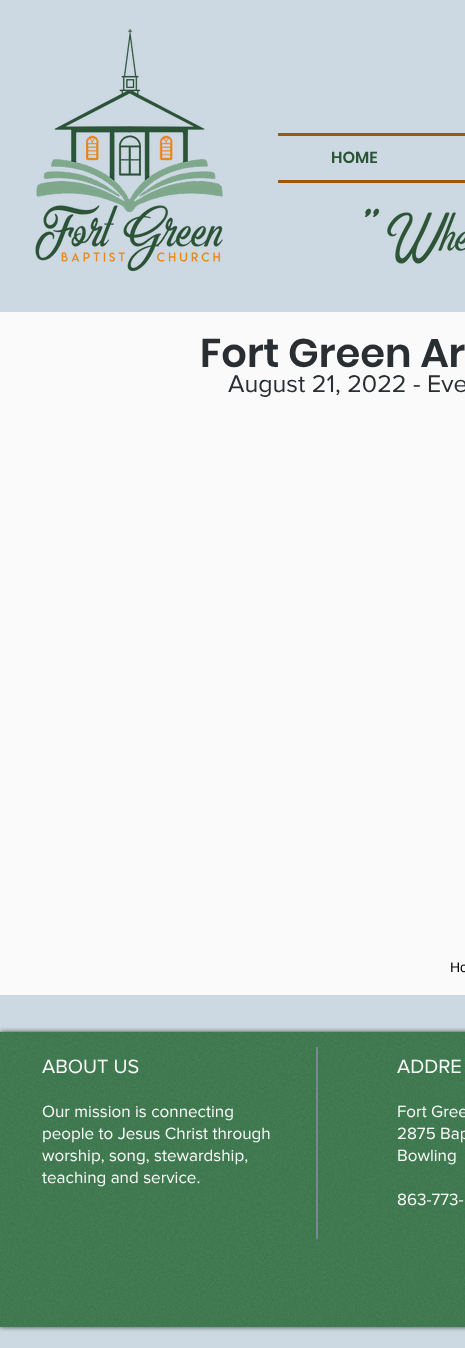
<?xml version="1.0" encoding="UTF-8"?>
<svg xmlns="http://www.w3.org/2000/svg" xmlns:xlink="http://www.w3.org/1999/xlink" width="465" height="1348">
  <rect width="100%" height="100%" fill="#cdd9e2" />
  <image x="35" y="29" width="188" height="243" xlink:href="image1.png" />
  <rect x="278" y="133" width="187" height="3" fill="#a15703" />
  <rect x="278" y="180" width="187" height="3" fill="#a15703" />
  <image x="364" y="208" width="101" height="56" xlink:href="image2.png" />
  <rect y="312" width="465" height="683" fill="#fafafa" />
  <rect y="1032" width="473" height="295" fill="#000000" fill-opacity="0.7" filter="blur(2.5px)" />
  <rect y="1032" width="465" height="295" fill="#407c51" />
  <image x="0" y="1032" width="465" height="295" xlink:href="image3.png" />
  <rect x="316" y="1047" width="2" height="192" fill="#798993" />
  <text x="331" y="163" style="font-family: Poppins; font-size: 16px; font-weight: 600; fill: #2b5336">HOME</text>
  <text x="200" y="367" style="font-family: Poppins; font-size: 40px; font-weight: 600; fill: #282e31">Fort Green Ar</text>
  <text x="228" y="392" style="font-family: 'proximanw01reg'; font-size: 25px; fill: #282e31">August 21, 2022 - Eve</text>
  <text x="450" y="972" style="font-family: Liberation Sans; font-size: 14px; fill: #000000">Ho</text>
  <text x="42" y="1073" style="font-family: 'proximanw01reg'; font-size: 20px; fill: #fafafa">ABOUT US</text>
  <text x="42" y="1117" style="font-family: 'proximanw01reg'; font-size: 17px; fill: #fafafa">Our mission is connecting</text>
  <text x="42" y="1139" style="font-family: 'proximanw01reg'; font-size: 17px; fill: #fafafa">people to Jesus Christ through</text>
  <text x="42" y="1161" style="font-family: 'proximanw01reg'; font-size: 17px; fill: #fafafa">worship, song, stewardship,</text>
  <text x="42" y="1183" style="font-family: 'proximanw01reg'; font-size: 17px; fill: #fafafa">teaching and service.</text>
  <text x="397" y="1073" style="font-family: 'proximanw01reg'; font-size: 20px; fill: #fafafa">ADDRE</text>
  <text x="397" y="1117" style="font-family: 'proximanw01reg'; font-size: 17px; fill: #fafafa">Fort Gree</text>
  <text x="397" y="1139" style="font-family: 'proximanw01reg'; font-size: 17px; fill: #fafafa">2875 Bap</text>
  <text x="397" y="1161" style="font-family: 'proximanw01reg'; font-size: 17px; fill: #fafafa">Bowling</text>
  <text x="397" y="1205" style="font-family: 'proximanw01reg'; font-size: 17px; fill: #fafafa">863-773-</text>
</svg>
